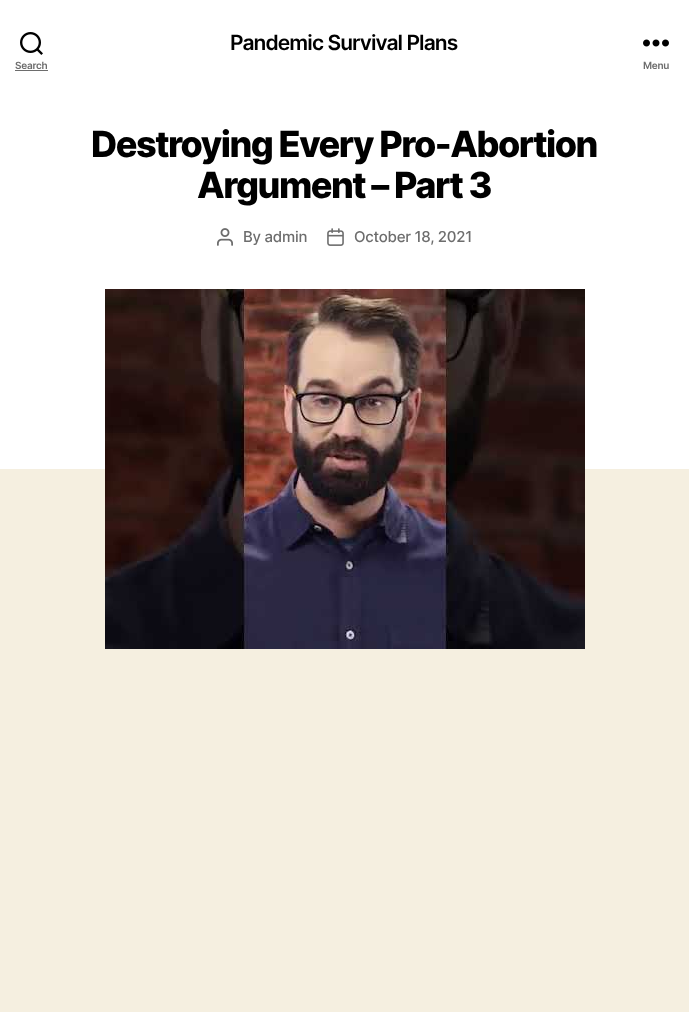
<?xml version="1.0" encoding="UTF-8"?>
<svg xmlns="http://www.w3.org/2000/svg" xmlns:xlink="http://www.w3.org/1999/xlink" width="689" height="1012">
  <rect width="100%" height="100%" fill="#f5efe0" />
  <rect width="689" height="469" fill="#ffffff" />
  <image x="20" y="32" width="23" height="23" xlink:href="image1.png" />
  <rect x="15" y="70" width="33" height="1" fill="#6d6d6d" />
  <image x="643" y="39" width="26" height="8" xlink:href="image2.png" />
  <image x="217" y="228" width="16" height="18" xlink:href="image3.png" />
  <image x="327" y="228" width="17" height="18" xlink:href="image4.png" />
  <image x="105" y="289" width="480" height="360" xlink:href="image5.png" />
  <text x="230" y="50" style="font-family: Inter; font-size: 21px; font-weight: 600; letter-spacing: -0.9px; fill: #000000">Pandemic Survival Plans</text>
  <text x="15" y="69" style="font-family: Inter; font-size: 10px; font-weight: 600; letter-spacing: -0.25px; fill: #6d6d6d">Search</text>
  <text x="643" y="69" style="font-family: Inter; font-size: 10px; font-weight: 600; letter-spacing: -0.25px; fill: #6d6d6d">Menu</text>
  <text x="91" y="157" style="font-family: Inter; font-size: 36px; font-weight: 800; letter-spacing: -1.5px; fill: #000000">Destroying Every Pro-Abortion</text>
  <text x="197" y="198" style="font-family: Inter; font-size: 36px; font-weight: 800; letter-spacing: -1.5px; fill: #000000">Argument – Part 3</text>
  <text x="243" y="242" style="font-family: Inter; font-size: 15px; font-weight: 500; letter-spacing: -0.25px; fill: #6d6d6d">By admin</text>
  <text x="354" y="242" style="font-family: Inter; font-size: 15px; font-weight: 500; letter-spacing: -0.25px; fill: #6d6d6d">October 18, 2021</text>
</svg>
